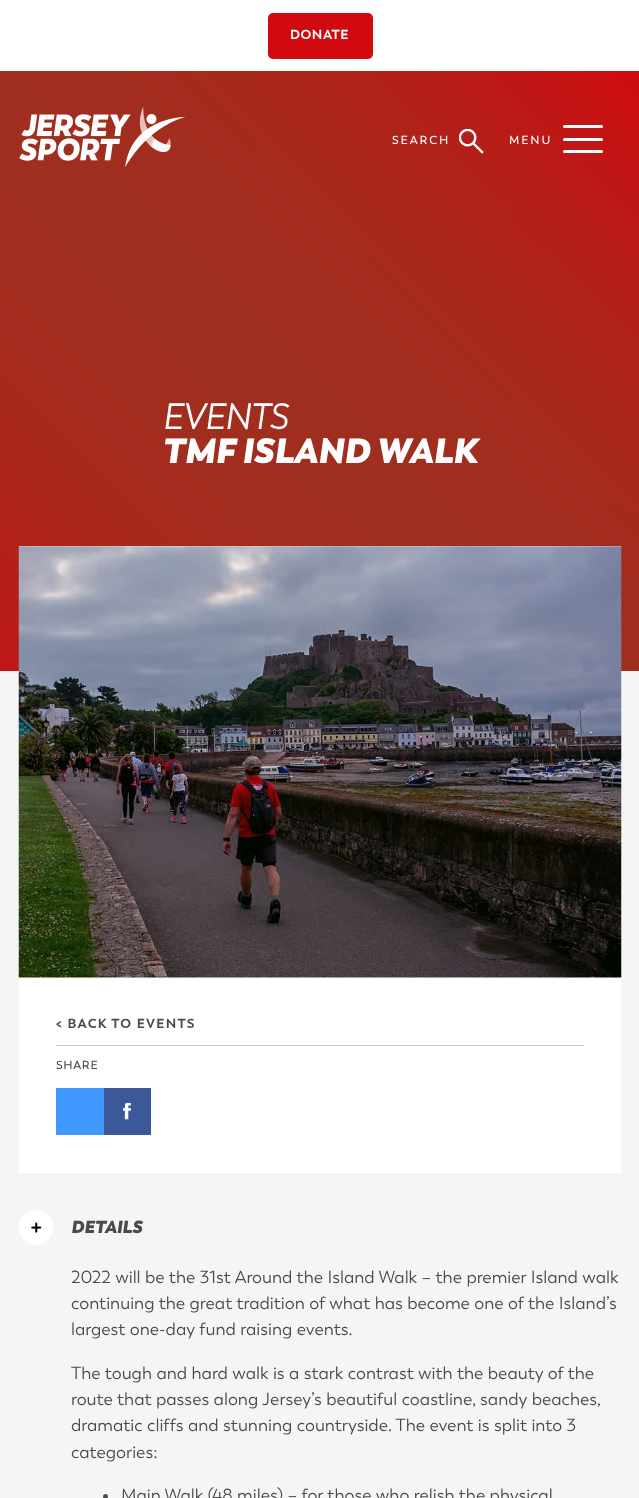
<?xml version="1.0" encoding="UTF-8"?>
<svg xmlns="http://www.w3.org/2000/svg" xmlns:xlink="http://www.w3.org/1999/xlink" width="639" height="1498">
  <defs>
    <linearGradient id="g1" gradientUnits="userSpaceOnUse" x1="10" y1="681" x2="630" y2="61"><stop offset="0" stop-color="#218d44" /><stop offset="1" stop-color="#d00a10" /></linearGradient>
    <linearGradient id="g2" gradientUnits="userSpaceOnUse" x1="10" y1="681" x2="630" y2="61"><stop offset="0" stop-color="#d10a10" stop-opacity="0.9" /><stop offset="1" stop-color="#d10a10" stop-opacity="0" /></linearGradient>
  </defs>
  <rect width="100%" height="100%" fill="#f5f5f5" />
  <rect width="639" height="71" fill="#ffffff" />
  <rect x="268" y="13" width="105" height="46" rx="5" fill="#d10a10" />
  <rect y="71" width="639" height="600" fill="url(#g1)" />
  <rect y="71" width="639" height="600" fill="url(#g2)" />
  <image x="19" y="106" width="167" height="61" xlink:href="image1.png" />
  <image x="459" y="129" width="25" height="25" xlink:href="image2.png" />
  <rect x="563" y="125" width="40" height="3" rx="1.5" fill="#ffffff" />
  <rect x="563" y="138" width="40" height="3" rx="1.5" fill="#ffffff" />
  <rect x="563" y="150" width="40" height="3" rx="1.5" fill="#ffffff" />
  <rect x="19" y="546" width="602" height="627" fill="#ffffff" />
  <image x="18" y="546" width="604" height="432" xlink:href="image3.png" />
  <rect x="56" y="1045" width="528" height="1" fill="#cbc8c5" />
  <rect x="56" y="1088" width="48" height="47" fill="#4099ff" />
  <rect x="104" y="1088" width="47" height="47" fill="#3b5998" />
  <image x="123" y="1103" width="8" height="17" xlink:href="image4.png" />
  <image x="19" y="1210" width="35" height="35" xlink:href="image5.png" />
  <circle cx="105.5" cy="1496.5" r="2.5" fill="#4a4a4a" />
  <text x="290" y="39" style="font-family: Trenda; font-size: 13.1px; font-weight: bold; letter-spacing: 0.5px; fill: #ffffff">DONATE</text>
  <text x="392" y="144" style="font-family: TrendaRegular; font-size: 11.25px; font-weight: bold; letter-spacing: 2.25px; fill: #ffffff">SEARCH</text>
  <text x="509" y="144" style="font-family: TrendaRegular; font-size: 11.25px; font-weight: bold; letter-spacing: 2.25px; fill: #ffffff">MENU</text>
  <text x="162" y="429" style="font-family: Trenda; font-size: 35px; font-weight: bold; font-style: italic; fill: #ffffff">EVENTS</text>
  <text x="162" y="463" style="font-family: Trenda; font-size: 35px; font-weight: 900; font-style: italic; fill: #ffffff">TMF ISLAND WALK</text>
  <text x="56" y="1028" style="font-family: Trenda; font-size: 13.1px; font-weight: bold; letter-spacing: 1.25px; fill: #4a4a4a">&lt; BACK TO EVENTS</text>
  <text x="56" y="1069" style="font-family: TrendaRegular; font-size: 11.25px; font-weight: bold; letter-spacing: 1px; fill: #4a4a4a">SHARE</text>
  <text x="71" y="1233" style="font-family: Trenda; font-size: 17.5px; font-weight: 900; font-style: italic; fill: #4a4a4a">DETAILS</text>
  <text x="71" y="1283" style="font-family: TrendaRegular; font-size: 17.5px; fill: #4a4a4a">2022 will be the 31st Around the Island Walk – the premier Island walk</text>
  <text x="71" y="1309" style="font-family: TrendaRegular; font-size: 17.5px; fill: #4a4a4a">continuing the great tradition of what has become one of the Island’s</text>
  <text x="71" y="1335" style="font-family: TrendaRegular; font-size: 17.5px; fill: #4a4a4a">largest one-day fund raising events.</text>
  <text x="71" y="1379" style="font-family: TrendaRegular; font-size: 17.5px; fill: #4a4a4a">The tough and hard walk is a stark contrast with the beauty of the</text>
  <text x="71" y="1405" style="font-family: TrendaRegular; font-size: 17.5px; fill: #4a4a4a">route that passes along Jersey’s beautiful coastline, sandy beaches,</text>
  <text x="71" y="1431" style="font-family: TrendaRegular; font-size: 17.5px; fill: #4a4a4a">dramatic cliffs and stunning countryside. The event is split into 3</text>
  <text x="71" y="1458" style="font-family: TrendaRegular; font-size: 17.5px; fill: #4a4a4a">categories:</text>
  <text x="121" y="1501" style="font-family: TrendaRegular; font-size: 17.5px; fill: #4a4a4a">Main Walk (48 miles) – for those who relish the physical</text>
</svg>
